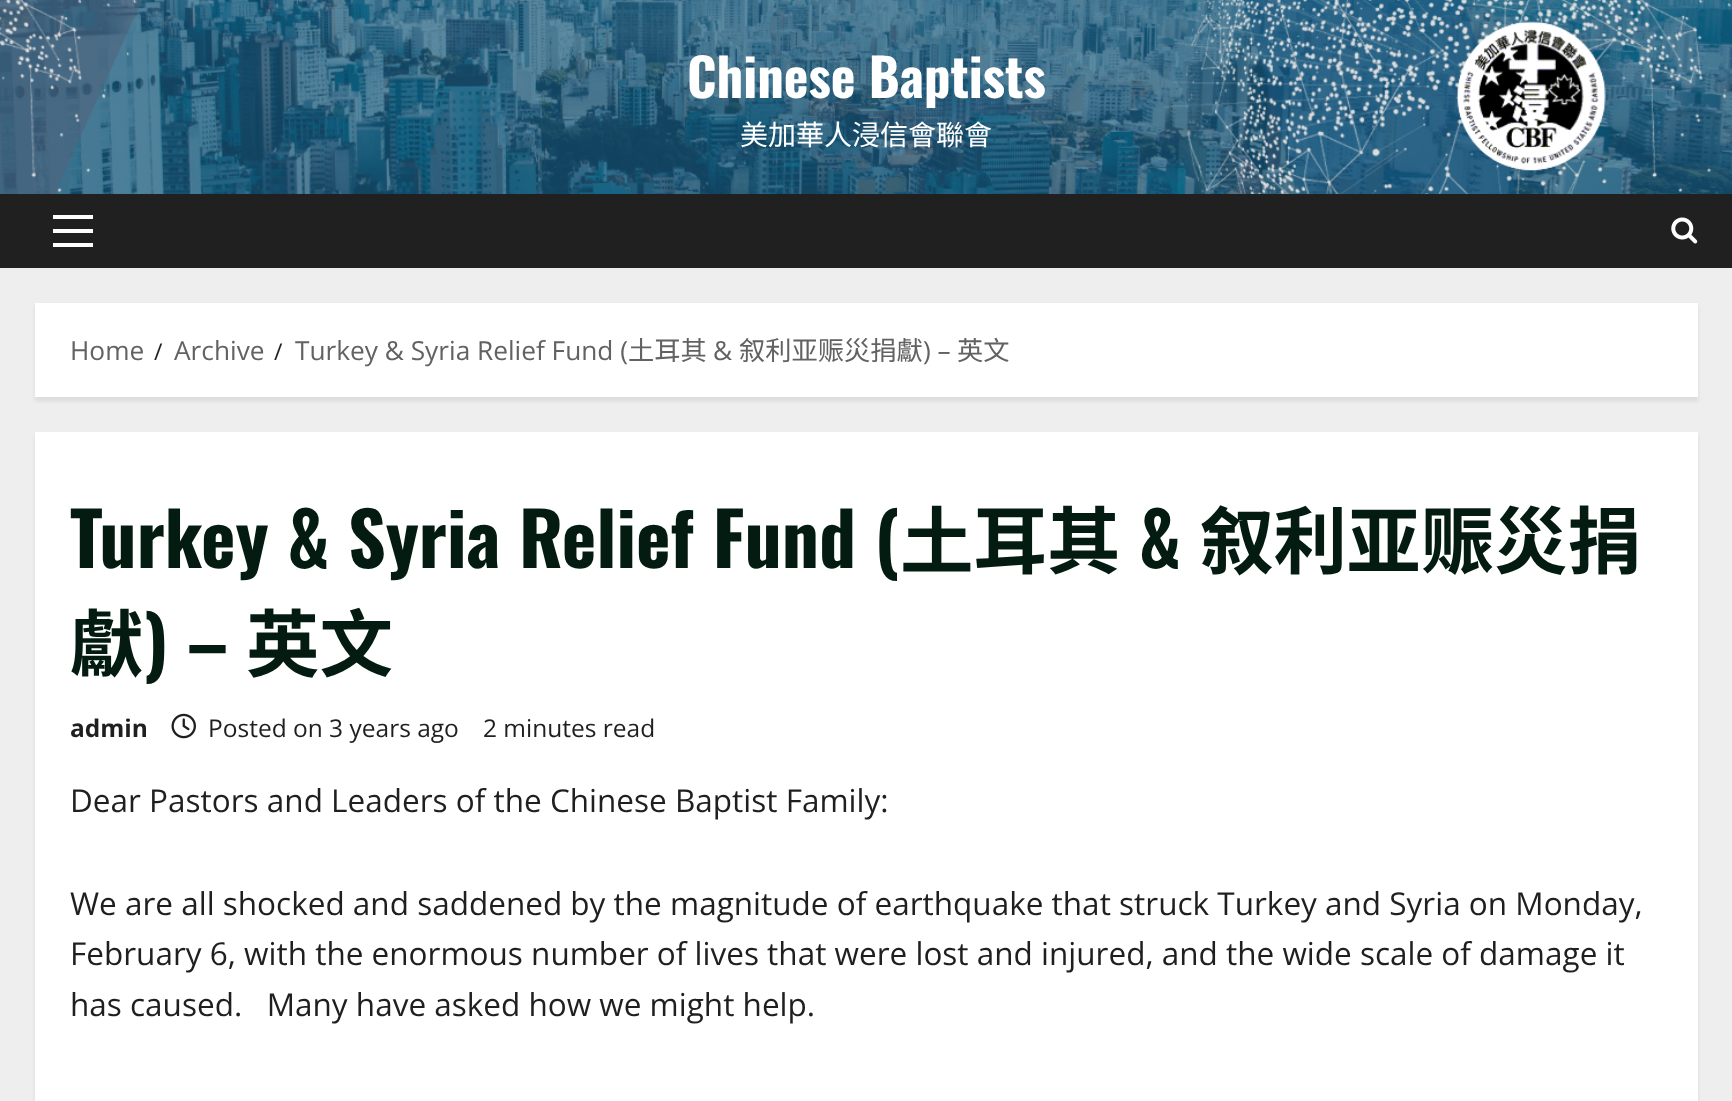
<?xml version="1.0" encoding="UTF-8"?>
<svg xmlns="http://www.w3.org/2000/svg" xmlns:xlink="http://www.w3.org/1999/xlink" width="1732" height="1101">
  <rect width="100%" height="100%" fill="#eeeeee" />
  <image x="0" y="0" width="1732" height="194" xlink:href="image1.png" />
  <rect y="194" width="1732" height="74" fill="#202020" />
  <rect x="53" y="229" width="40" height="4" fill="#ffffff" />
  <rect x="53" y="215" width="40" height="4" fill="#ffffff" />
  <rect x="53" y="243" width="40" height="4" fill="#ffffff" />
  <image x="1671" y="217" width="27" height="27" xlink:href="image2.png" />
  <rect x="35" y="306" width="1663" height="95" fill="#000000" fill-opacity="0.08" filter="blur(2px)" />
  <rect x="35" y="303" width="1663" height="94" fill="#ffffff" />
  <rect x="35" y="436" width="1663" height="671" fill="#000000" fill-opacity="0.08" filter="blur(2px)" />
  <rect x="35" y="432" width="1663" height="669" fill="#ffffff" />
  <image x="171" y="713" width="25" height="26" xlink:href="image3.png" />
  <text x="687" y="98" style="font-family: Oswald; font-size: 52.5px; font-weight: bold; fill: #ffffff">Chinese Baptists</text>
  <text x="740" y="145" style="font-family: Noto Sans CJK SC; font-size: 28px; fill: #ffffff">美加華人浸信會聯會</text>
  <text x="70" y="360" style="font-family: Open Sans; font-size: 26.25px; fill: #626262">Home</text>
  <text x="154" y="360" style="font-family: Open Sans; font-size: 23px; fill: #1f1f1f">/</text>
  <text x="174" y="360" style="font-family: Open Sans; font-size: 26.25px; fill: #626262">Archive</text>
  <text x="274" y="360" style="font-family: Open Sans; font-size: 23px; fill: #1f1f1f">/</text>
  <text x="295" y="360" style="font-family: Open Sans; font-size: 26.25px; fill: #626262">Turkey &amp; Syria Relief Fund (</text>
  <text x="628" y="360" style="font-family: Noto Sans CJK SC; font-size: 26.25px; fill: #626262">土耳其</text>
  <text x="713" y="360" style="font-family: Open Sans; font-size: 26.25px; fill: #626262">&amp;</text>
  <text x="739" y="360" style="font-family: Noto Sans CJK SC; font-size: 26.25px; fill: #626262">叙利亚赈災捐獻</text>
  <text x="923" y="360" style="font-family: Open Sans; font-size: 26.25px; fill: #626262">) –</text>
  <text x="957" y="360" style="font-family: Noto Sans CJK SC; font-size: 26.25px; fill: #626262">英文</text>
  <text x="70" y="568" style="font-family: Oswald; font-size: 73.5px; font-weight: bold; fill: #031b11">Turkey &amp; Syria Relief Fund (</text>
  <text x="900" y="568" style="font-family: Noto Sans CJK SC; font-size: 73.5px; font-weight: bold; fill: #031b11">土耳其</text>
  <text x="1139" y="568" style="font-family: Oswald; font-size: 73.5px; font-weight: bold; fill: #031b11">&amp;</text>
  <text x="1200" y="568" style="font-family: Noto Sans CJK SC; font-size: 73.5px; font-weight: bold; fill: #031b11">叙利亚赈災捐</text>
  <text x="70" y="671" style="font-family: Noto Sans CJK SC; font-size: 73.5px; font-weight: bold; fill: #031b11">獻</text>
  <text x="144" y="671" style="font-family: Oswald; font-size: 73.5px; font-weight: bold; fill: #031b11">) –</text>
  <text x="246" y="671" style="font-family: Noto Sans CJK SC; font-size: 73.5px; font-weight: bold; fill: #031b11">英文</text>
  <text x="70" y="737" style="font-family: Open Sans; font-size: 24.5px; font-weight: bold; fill: #1f1f1f">admin</text>
  <text x="208" y="737" style="font-family: Open Sans; font-size: 24.5px; fill: #1f1f1f">Posted on 3 years ago</text>
  <text x="483" y="737" style="font-family: Open Sans; font-size: 24.5px; fill: #1f1f1f">2 minutes read</text>
  <text x="70" y="812" style="font-family: Open Sans; font-size: 31.5px; fill: #1f1f1f">Dear Pastors and Leaders of the Chinese Baptist Family:</text>
  <text x="70" y="915" style="font-family: Open Sans; font-size: 31.5px; fill: #1f1f1f">We are all shocked and saddened by the magnitude of earthquake that struck Turkey and Syria on Monday,</text>
  <text x="70" y="965" style="font-family: Open Sans; font-size: 31.5px; fill: #1f1f1f">February 6, with the enormous number of lives that were lost and injured, and the wide scale of damage it</text>
  <text x="70" y="1016" style="font-family: Open Sans; font-size: 31.5px; fill: #1f1f1f" xml:space="preserve">has caused.   Many have asked how we might help.</text>
</svg>
